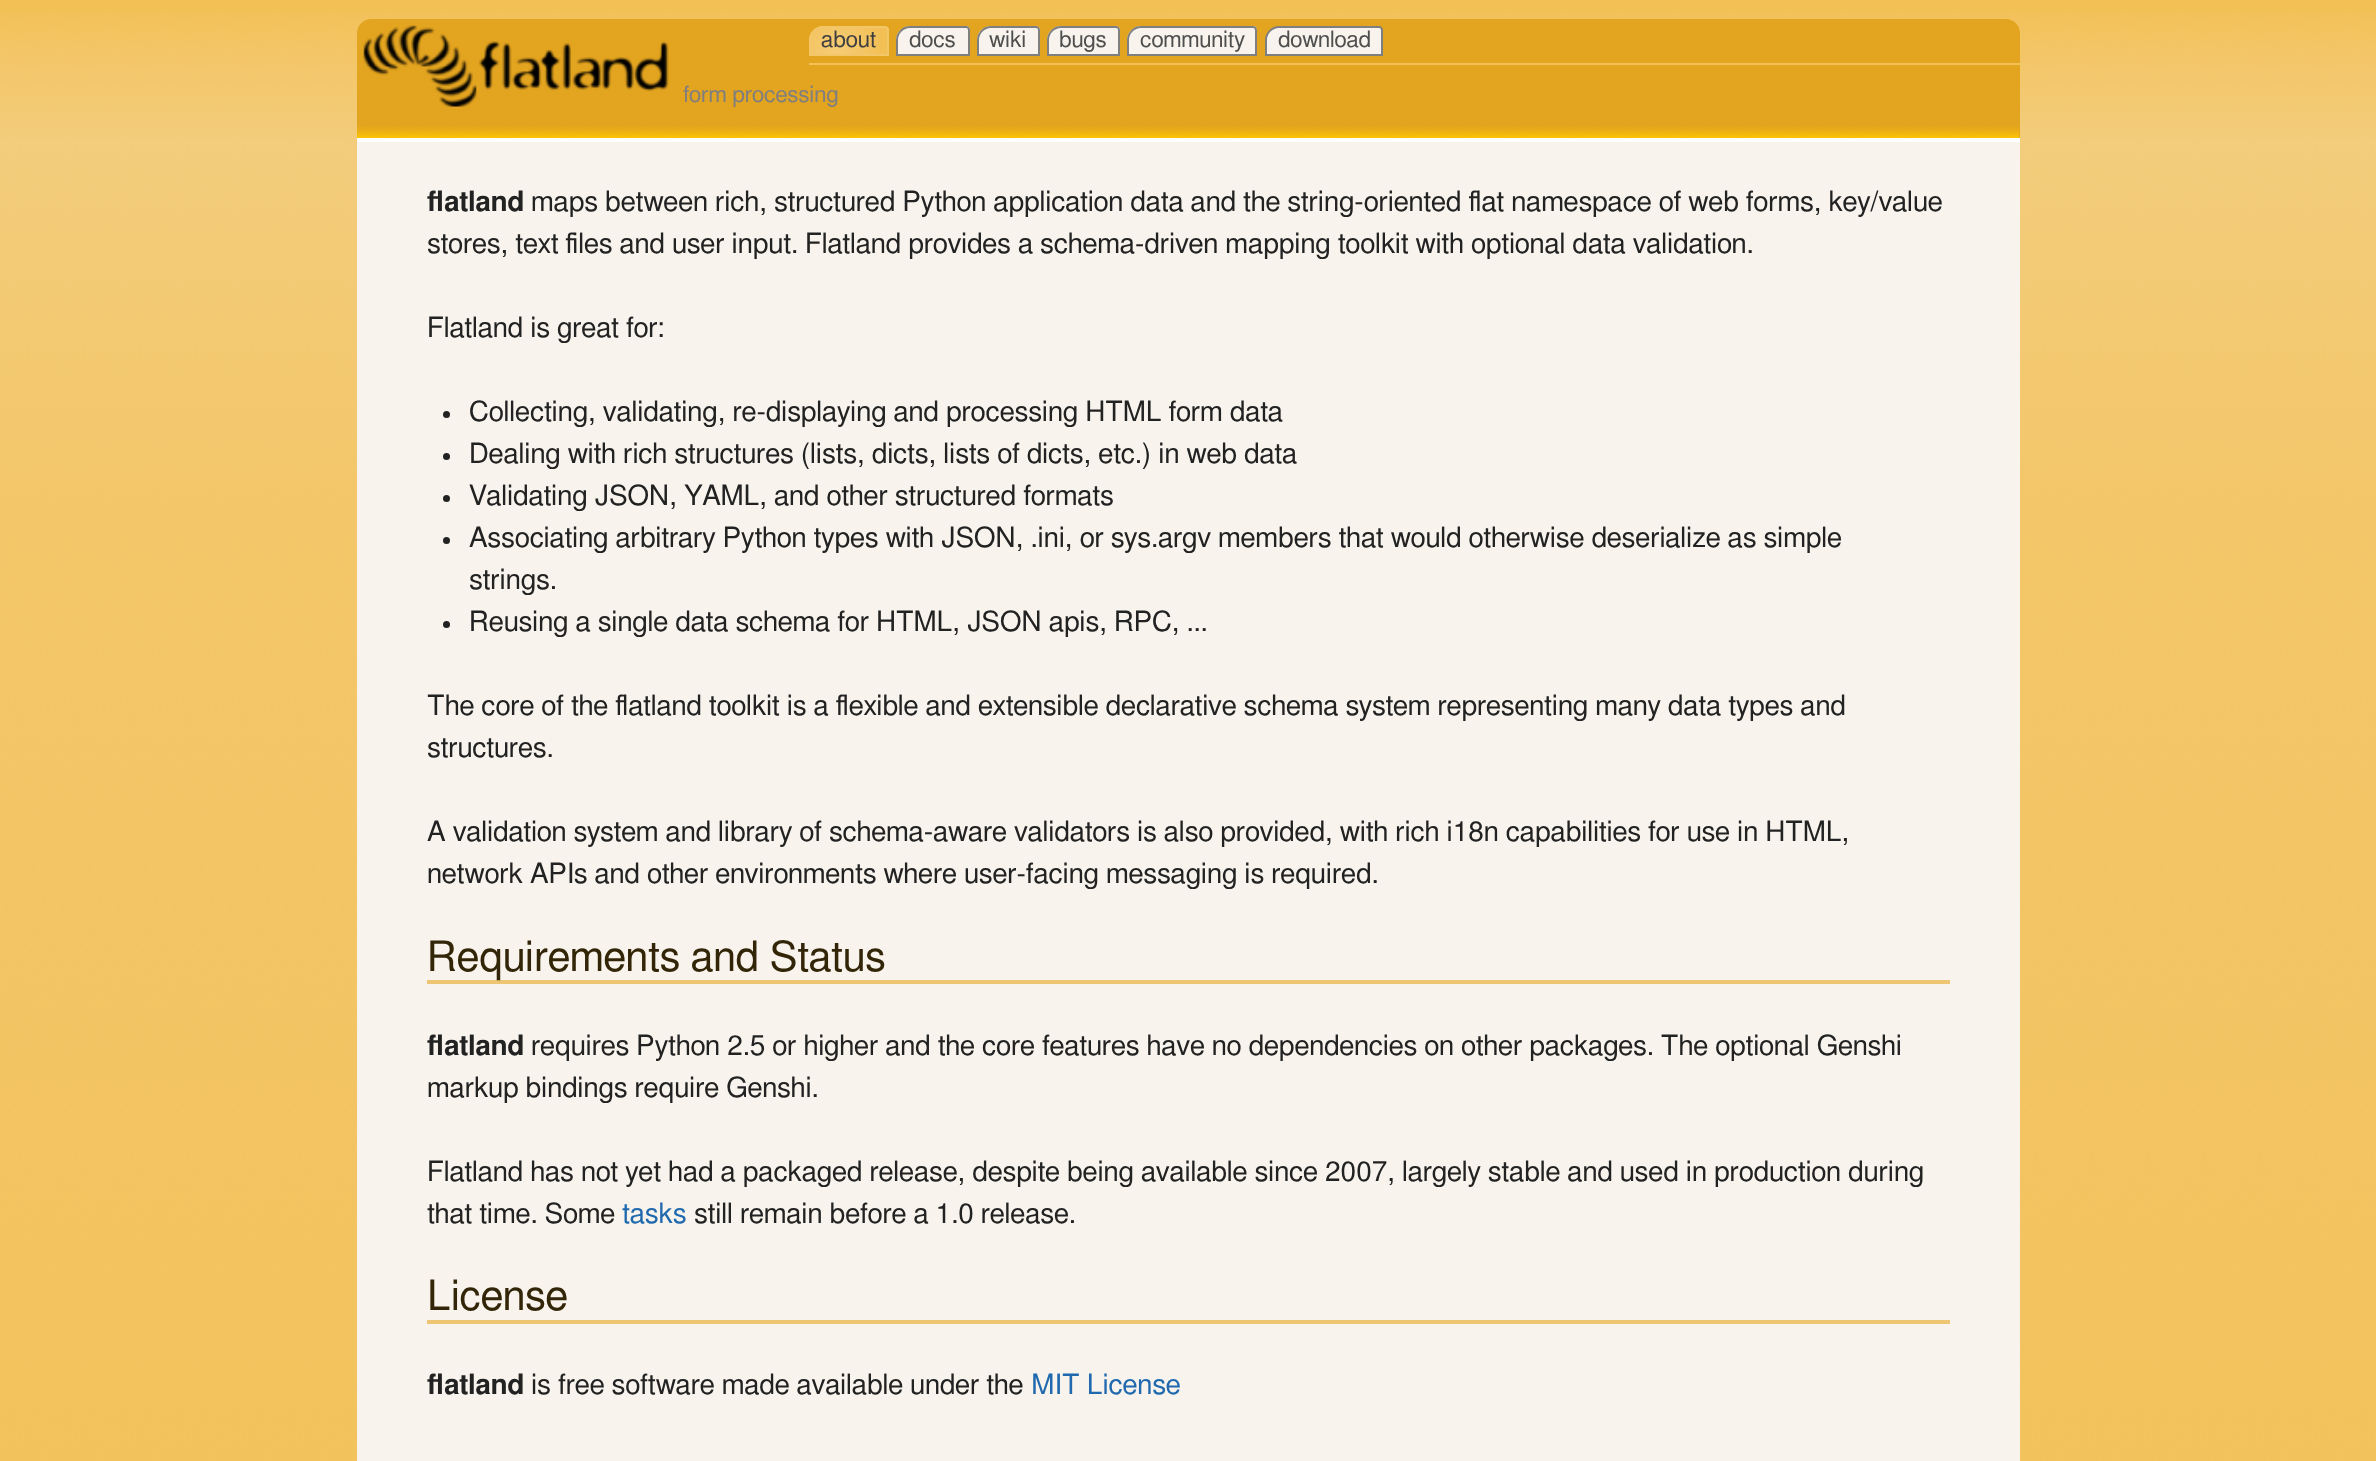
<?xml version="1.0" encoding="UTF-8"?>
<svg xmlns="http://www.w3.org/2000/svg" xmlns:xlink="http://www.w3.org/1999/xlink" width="2376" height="1461">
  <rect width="100%" height="100%" fill="#f3c056" />
  <image x="0" y="12" width="2376" height="1449" xlink:href="image1.png" />
  <path d="M 371 19 h 1635 c 7.5 0 14 6.5 14 14 v 105 h -1663 v -105 c 0 -7.5 6.5 -14 14 -14 z" fill="#e3a41f" />
  <image x="357" y="126" width="1663" height="12" xlink:href="image2.png" />
  <image x="363" y="25" width="306" height="82" xlink:href="image3.png" />
  <rect x="809" y="63" width="1211" height="2" fill="#f3c056" />
  <path d="M 823 26 h 62 c 2 0 4 2 4 4 v 26 h -80 v -16 c 0 -7.5 6.5 -14 14 -14 z" fill="#f3c056" />
  <image x="810" y="28" width="69" height="26" xlink:href="image4.png" />
  <path d="M 910 26 h 56 c 2 0 4 2 4 4 v 26 h -74 v -16 c 0 -7.5 6.5 -14 14 -14 z" fill="#f8f4ed" />
  <image x="900" y="28" width="2" height="2" xlink:href="image5.png" />
  <path d="M 991 26 h 45 c 2 0 4 2 4 4 v 26 h -63 v -16 c 0 -7.5 6.5 -14 14 -14 z" fill="#f8f4ed" />
  <image x="978" y="28" width="6" height="6" xlink:href="image6.png" />
  <path d="M 1061 26 h 55 c 2 0 4 2 4 4 v 26 h -73 v -16 c 0 -7.5 6.5 -14 14 -14 z" fill="#f8f4ed" />
  <image x="1048" y="28" width="6" height="6" xlink:href="image6.png" />
  <path d="M 1141 26 h 112 c 2 0 4 2 4 4 v 26 h -130 v -16 c 0 -7.5 6.5 -14 14 -14 z" fill="#f8f4ed" />
  <image x="1131" y="28" width="2" height="2" xlink:href="image5.png" />
  <path d="M 823 27 h 62 c 1.5 0 3 1.5 3 3 v 25 h -78 v -15 c 0 -7 6 -13 13 -13 z" fill="none" stroke="#f3c66a" stroke-width="2" />
  <path d="M 910 27 h 56 c 1.5 0 3 1.5 3 3 v 25 h -72 v -15 c 0 -7 6 -13 13 -13 z" fill="none" stroke="#7f7f7f" stroke-width="2" />
  <path d="M 991 27 h 45 c 1.5 0 3 1.5 3 3 v 25 h -61 v -15 c 0 -7 6 -13 13 -13 z" fill="none" stroke="#7f7f7f" stroke-width="2" />
  <path d="M 1061 27 h 55 c 1.5 0 3 1.5 3 3 v 25 h -71 v -15 c 0 -7 6 -13 13 -13 z" fill="none" stroke="#7f7f7f" stroke-width="2" />
  <path d="M 1141 27 h 112 c 1.5 0 3 1.5 3 3 v 25 h -128 v -15 c 0 -7 6 -13 13 -13 z" fill="none" stroke="#7f7f7f" stroke-width="2" />
  <path d="M 1279 27 h 100 c 1.5 0 3 1.5 3 3 v 25 h -116 v -15 c 0 -7 6 -13 13 -13 z" fill="#f8f4ed" stroke="#7f7f7f" stroke-width="2" />
  <rect x="357" y="142" width="1663" height="1319" fill="#f8f4ed" />
  <rect x="357" y="138" width="1663" height="4" fill="#ffffff" />
  <circle cx="446.5" cy="414.5" r="3.5" fill="#222222" />
  <circle cx="446.5" cy="456.5" r="3.5" fill="#222222" />
  <circle cx="446.5" cy="498.5" r="3.5" fill="#222222" />
  <circle cx="446.5" cy="540.5" r="3.5" fill="#222222" />
  <circle cx="446.5" cy="624.5" r="3.5" fill="#222222" />
  <rect x="427" y="980" width="1523" height="4" fill="#eec673" />
  <rect x="427" y="1320" width="1523" height="4" fill="#eec673" />
  <text x="821" y="47" style="font-family: FreeSans; font-size: 22.5px; fill: #3f3f3f">about</text>
  <text x="909" y="47" style="font-family: FreeSans; font-size: 22.5px; fill: #4f4f4f">docs</text>
  <text x="989" y="47" style="font-family: FreeSans; font-size: 22.5px; fill: #4f4f4f">wiki</text>
  <text x="1059" y="47" style="font-family: FreeSans; font-size: 22.5px; fill: #4f4f4f">bugs</text>
  <text x="1140" y="47" style="font-family: FreeSans; font-size: 22.5px; fill: #4f4f4f">community</text>
  <text x="1278" y="47" style="font-family: FreeSans; font-size: 22.5px; fill: #4f4f4f">download</text>
  <text x="683" y="102" style="font-family: FreeSans; font-size: 22.5px; fill: #7f7f7f">form processing</text>
  <text x="427" y="211" style="font-family: FreeSans; font-size: 28px; font-weight: 600; fill: #222222">flatland</text>
  <text x="531" y="211" style="font-family: FreeSans; font-size: 28px; fill: #222222">maps between rich, structured Python application data and the string-oriented flat namespace of web forms, key/value</text>
  <text x="427" y="253" style="font-family: FreeSans; font-size: 28px; fill: #222222">stores, text files and user input. Flatland provides a schema-driven mapping toolkit with optional data validation.</text>
  <text x="427" y="337" style="font-family: FreeSans; font-size: 28px; fill: #222222">Flatland is great for:</text>
  <text x="469" y="421" style="font-family: FreeSans; font-size: 28px; fill: #222222">Collecting, validating, re-displaying and processing HTML form data</text>
  <text x="469" y="463" style="font-family: FreeSans; font-size: 28px; fill: #222222">Dealing with rich structures (lists, dicts, lists of dicts, etc.) in web data</text>
  <text x="469" y="505" style="font-family: FreeSans; font-size: 28px; fill: #222222">Validating JSON, YAML, and other structured formats</text>
  <text x="469" y="547" style="font-family: FreeSans; font-size: 28px; fill: #222222">Associating arbitrary Python types with JSON, .ini, or sys.argv members that would otherwise deserialize as simple</text>
  <text x="469" y="589" style="font-family: FreeSans; font-size: 28px; fill: #222222">strings.</text>
  <text x="469" y="631" style="font-family: FreeSans; font-size: 28px; fill: #222222">Reusing a single data schema for HTML, JSON apis, RPC, ...</text>
  <text x="427" y="715" style="font-family: FreeSans; font-size: 28px; fill: #222222">The core of the flatland toolkit is a flexible and extensible declarative schema system representing many data types and</text>
  <text x="427" y="757" style="font-family: FreeSans; font-size: 28px; fill: #222222">structures.</text>
  <text x="427" y="841" style="font-family: FreeSans; font-size: 28px; fill: #222222">A validation system and library of schema-aware validators is also provided, with rich i18n capabilities for use in HTML,</text>
  <text x="427" y="883" style="font-family: FreeSans; font-size: 28px; fill: #222222">network APIs and other environments where user-facing messaging is required.</text>
  <text x="427" y="971" style="font-family: FreeSans; font-size: 42px; fill: #332507">Requirements and Status</text>
  <text x="427" y="1055" style="font-family: FreeSans; font-size: 28px; font-weight: 600; fill: #222222">flatland</text>
  <text x="531" y="1055" style="font-family: FreeSans; font-size: 28px; fill: #222222">requires Python 2.5 or higher and the core features have no dependencies on other packages. The optional Genshi</text>
  <text x="427" y="1097" style="font-family: FreeSans; font-size: 28px; fill: #222222">markup bindings require Genshi.</text>
  <text x="427" y="1181" style="font-family: FreeSans; font-size: 28px; fill: #222222">Flatland has not yet had a packaged release, despite being available since 2007, largely stable and used in production during</text>
  <text x="427" y="1223" style="font-family: FreeSans; font-size: 28px; fill: #222222">that time. Some</text>
  <text x="622" y="1223" style="font-family: FreeSans; font-size: 28px; fill: #2069ae">tasks</text>
  <text x="694" y="1223" style="font-family: FreeSans; font-size: 28px; fill: #222222">still remain before a 1.0 release.</text>
  <text x="427" y="1310" style="font-family: FreeSans; font-size: 42px; fill: #332507">License</text>
  <text x="427" y="1394" style="font-family: FreeSans; font-size: 28px; font-weight: 600; fill: #222222">flatland</text>
  <text x="531" y="1394" style="font-family: FreeSans; font-size: 28px; fill: #222222">is free software made available under the</text>
  <text x="1031" y="1394" style="font-family: FreeSans; font-size: 28px; fill: #2069ae">MIT License</text>
</svg>
